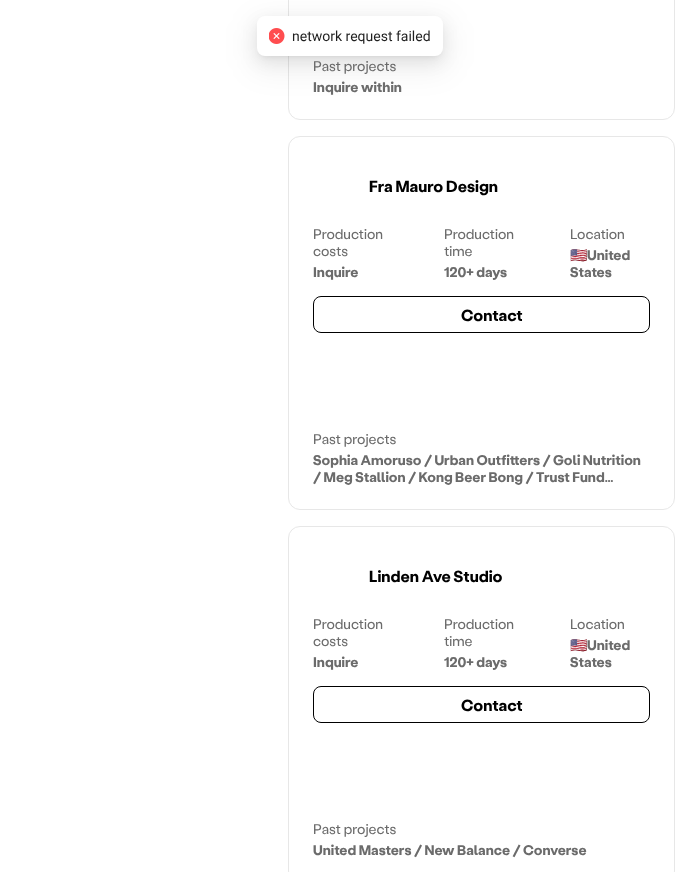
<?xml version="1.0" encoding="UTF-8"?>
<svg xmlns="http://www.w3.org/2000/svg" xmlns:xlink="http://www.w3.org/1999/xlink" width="699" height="872">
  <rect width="100%" height="100%" fill="#ffffff" />
  <rect x="288.5" y="-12.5" width="386" height="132" rx="11.5" fill="none" stroke="#e7e7e7" />
  <rect x="249" y="17" width="202" height="56" rx="16" fill="#000000" fill-opacity="0.05" filter="blur(14px)" />
  <rect x="261" y="23" width="178" height="32" rx="4" fill="#000000" fill-opacity="0.12" filter="blur(3px)" />
  <rect x="257" y="22" width="186" height="40" rx="8" fill="#000000" fill-opacity="0.08" filter="blur(8px)" />
  <rect x="257" y="16" width="186" height="40" rx="8" fill="#ffffff" />
  <image x="269" y="28" width="16" height="16" xlink:href="image1.png" />
  <rect x="288.5" y="136.5" width="386" height="373" rx="11.5" fill="none" stroke="#e7e7e7" />
  <rect x="313.5" y="296.5" width="336" height="36" rx="7.5" fill="none" stroke="#000000" />
  <rect x="288.5" y="526.5" width="386" height="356" rx="11.5" fill="none" stroke="#e7e7e7" />
  <rect x="313.5" y="686.5" width="336" height="36" rx="7.5" fill="none" stroke="#000000" />
  <text x="292" y="41" style="font-family: Roboto; font-size: 14px; fill: #1f1f1f">network request failed</text>
  <text x="313" y="71" style="font-family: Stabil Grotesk; font-size: 14px; fill: #6b6b6b">Past projects</text>
  <text x="313" y="92" style="font-family: Stabil Grotesk; font-size: 14px; font-weight: bold; fill: #6b6b6b">Inquire within</text>
  <text x="369" y="192" style="font-family: Stabil Grotesk; font-size: 16px; font-weight: bold; fill: #000000">Fra Mauro Design</text>
  <text x="313" y="239" style="font-family: Stabil Grotesk; font-size: 14px; fill: #6b6b6b">Production</text>
  <text x="313" y="256" style="font-family: Stabil Grotesk; font-size: 14px; fill: #6b6b6b">costs</text>
  <text x="313" y="277" style="font-family: Stabil Grotesk; font-size: 14px; font-weight: bold; fill: #6b6b6b">Inquire</text>
  <text x="444" y="239" style="font-family: Stabil Grotesk; font-size: 14px; fill: #6b6b6b">Production</text>
  <text x="444" y="256" style="font-family: Stabil Grotesk; font-size: 14px; fill: #6b6b6b">time</text>
  <text x="444" y="277" style="font-family: Stabil Grotesk; font-size: 14px; font-weight: bold; fill: #6b6b6b">120+ days</text>
  <text x="570" y="239" style="font-family: Stabil Grotesk; font-size: 14px; fill: #6b6b6b">Location</text>
  <text x="570" y="260" style="font-family: Noto Color Emoji; font-size: 14px; fill: #6b6b6b">🇺🇸</text>
  <text x="587" y="260" style="font-family: Stabil Grotesk; font-size: 14px; font-weight: bold; fill: #6b6b6b">United</text>
  <text x="570" y="277" style="font-family: Stabil Grotesk; font-size: 14px; font-weight: bold; fill: #6b6b6b">States</text>
  <text x="461" y="321" style="font-family: Stabil Grotesk; font-size: 16px; font-weight: bold; fill: #000000">Contact</text>
  <text x="313" y="444" style="font-family: Stabil Grotesk; font-size: 14px; fill: #6b6b6b">Past projects</text>
  <text x="313" y="465" style="font-family: Stabil Grotesk; font-size: 14px; font-weight: bold; fill: #6b6b6b">Sophia Amoruso / Urban Outfitters / Goli Nutrition</text>
  <text x="313" y="482" style="font-family: Stabil Grotesk; font-size: 14px; font-weight: bold; fill: #6b6b6b">/ Meg Stallion / Kong Beer Bong / Trust Fund…</text>
  <text x="369" y="582" style="font-family: Stabil Grotesk; font-size: 16px; font-weight: bold; fill: #000000">Linden Ave Studio</text>
  <text x="313" y="629" style="font-family: Stabil Grotesk; font-size: 14px; fill: #6b6b6b">Production</text>
  <text x="313" y="646" style="font-family: Stabil Grotesk; font-size: 14px; fill: #6b6b6b">costs</text>
  <text x="313" y="667" style="font-family: Stabil Grotesk; font-size: 14px; font-weight: bold; fill: #6b6b6b">Inquire</text>
  <text x="444" y="629" style="font-family: Stabil Grotesk; font-size: 14px; fill: #6b6b6b">Production</text>
  <text x="444" y="646" style="font-family: Stabil Grotesk; font-size: 14px; fill: #6b6b6b">time</text>
  <text x="444" y="667" style="font-family: Stabil Grotesk; font-size: 14px; font-weight: bold; fill: #6b6b6b">120+ days</text>
  <text x="570" y="629" style="font-family: Stabil Grotesk; font-size: 14px; fill: #6b6b6b">Location</text>
  <text x="570" y="650" style="font-family: Noto Color Emoji; font-size: 14px; fill: #6b6b6b">🇺🇸</text>
  <text x="587" y="650" style="font-family: Stabil Grotesk; font-size: 14px; font-weight: bold; fill: #6b6b6b">United</text>
  <text x="570" y="667" style="font-family: Stabil Grotesk; font-size: 14px; font-weight: bold; fill: #6b6b6b">States</text>
  <text x="461" y="711" style="font-family: Stabil Grotesk; font-size: 16px; font-weight: bold; fill: #000000">Contact</text>
  <text x="313" y="834" style="font-family: Stabil Grotesk; font-size: 14px; fill: #6b6b6b">Past projects</text>
  <text x="313" y="855" style="font-family: Stabil Grotesk; font-size: 14px; font-weight: bold; fill: #6b6b6b">United Masters / New Balance / Converse</text>
</svg>
